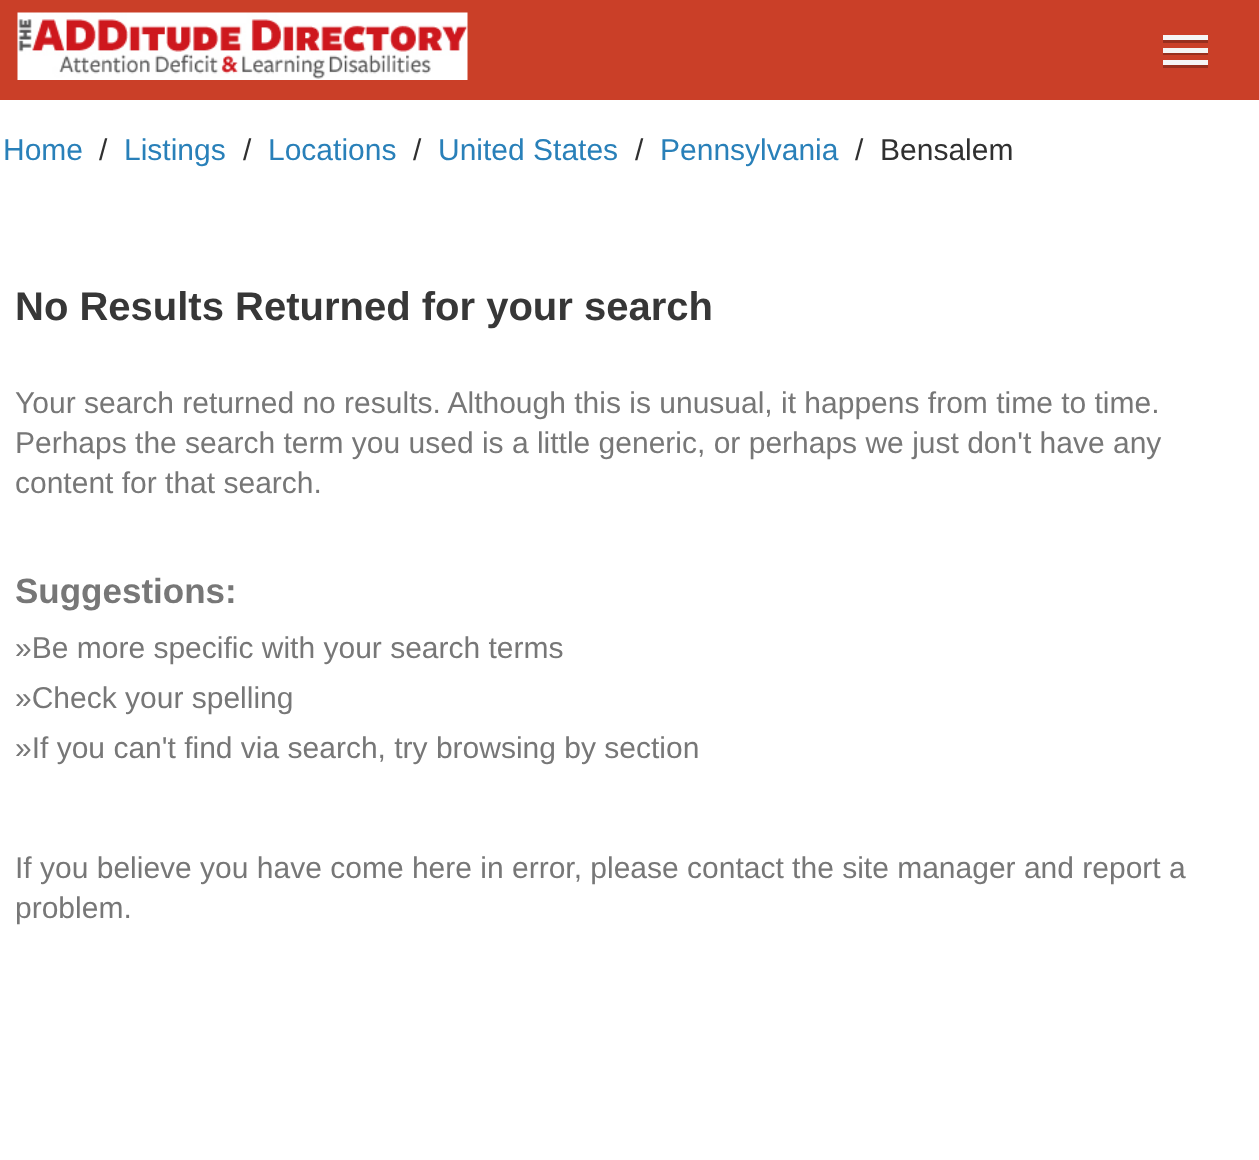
<?xml version="1.0" encoding="UTF-8"?>
<svg xmlns="http://www.w3.org/2000/svg" xmlns:xlink="http://www.w3.org/1999/xlink" width="1259" height="1160">
  <rect width="100%" height="100%" fill="#ca3f28" />
  <image x="17" y="12" width="451" height="68" xlink:href="image1.png" />
  <path d="M 1163 40 v 3 h 45 v -5 v 2 z" fill="#982f1e" />
  <rect x="1163" y="35" width="45" height="5" fill="#f5f5f5" />
  <path d="M 1163 52 v 3 h 45 v -5 v 2 z" fill="#982f1e" />
  <rect x="1163" y="48" width="45" height="5" fill="#f5f5f5" />
  <path d="M 1163 65 v 3 h 45 v -5 v 2 z" fill="#982f1e" />
  <rect x="1163" y="60" width="45" height="5" fill="#f5f5f5" />
  <rect y="100" width="1259" height="1060" fill="#ffffff" />
  <text x="3" y="160" style="font-family: Liberation Sans; font-size: 30px; fill: #2980b9">Home</text>
  <text x="99" y="160" style="font-family: Liberation Sans; font-size: 30px; fill: #303030">/</text>
  <text x="124" y="160" style="font-family: Liberation Sans; font-size: 30px; fill: #2980b9">Listings</text>
  <text x="243" y="160" style="font-family: Liberation Sans; font-size: 30px; fill: #303030">/</text>
  <text x="268" y="160" style="font-family: Liberation Sans; font-size: 30px; fill: #2980b9">Locations</text>
  <text x="413" y="160" style="font-family: Liberation Sans; font-size: 30px; fill: #303030">/</text>
  <text x="438" y="160" style="font-family: Liberation Sans; font-size: 30px; fill: #2980b9">United States</text>
  <text x="635" y="160" style="font-family: Liberation Sans; font-size: 30px; fill: #303030">/</text>
  <text x="660" y="160" style="font-family: Liberation Sans; font-size: 30px; fill: #2980b9">Pennsylvania</text>
  <text x="855" y="160" style="font-family: Liberation Sans; font-size: 30px; fill: #303030">/</text>
  <text x="880" y="160" style="font-family: Liberation Sans; font-size: 30px; fill: #303030">Bensalem</text>
  <text x="15" y="320" style="font-family: Liberation Sans; font-size: 40px; font-weight: bold; fill: #373737">No Results Returned for your search</text>
  <text x="15" y="413" style="font-family: Liberation Sans; font-size: 30px; fill: #777777">Your search returned no results. Although this is unusual, it happens from time to time.</text>
  <text x="15" y="453" style="font-family: Liberation Sans; font-size: 30px; fill: #777777">Perhaps the search term you used is a little generic, or perhaps we just don't have any</text>
  <text x="15" y="493" style="font-family: Liberation Sans; font-size: 30px; fill: #777777">content for that search.</text>
  <text x="15" y="603" style="font-family: Liberation Sans; font-size: 35px; font-weight: bold; fill: #777777">Suggestions:</text>
  <text x="15" y="658" style="font-family: Liberation Sans; font-size: 30px; fill: #777777">»Be more specific with your search terms</text>
  <text x="15" y="708" style="font-family: Liberation Sans; font-size: 30px; fill: #777777">»Check your spelling</text>
  <text x="15" y="758" style="font-family: Liberation Sans; font-size: 30px; fill: #777777">»If you can't find via search, try browsing by section</text>
  <text x="15" y="878" style="font-family: Liberation Sans; font-size: 30px; fill: #777777">If you believe you have come here in error, please contact the site manager and report a</text>
  <text x="15" y="918" style="font-family: Liberation Sans; font-size: 30px; fill: #777777">problem.</text>
</svg>
